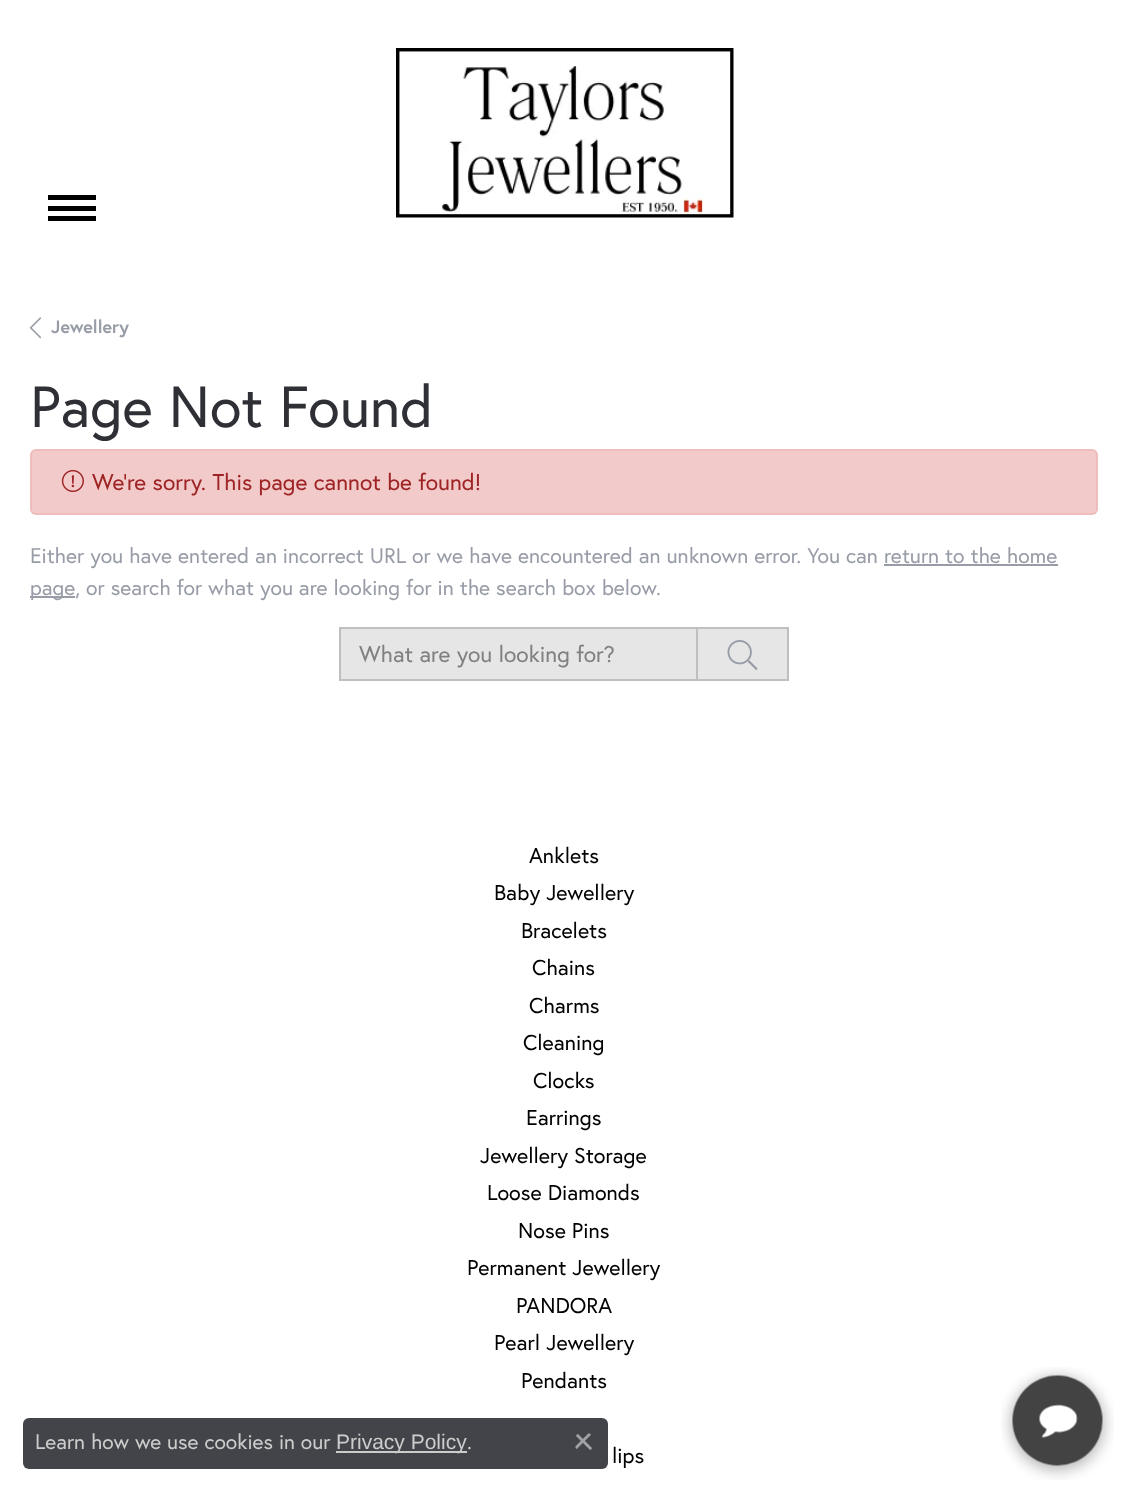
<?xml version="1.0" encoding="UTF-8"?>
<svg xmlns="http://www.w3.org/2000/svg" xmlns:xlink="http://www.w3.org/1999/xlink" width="1127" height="1491">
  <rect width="100%" height="100%" fill="#ffffff" />
  <rect x="48" y="195" width="48" height="5" fill="#000000" />
  <rect x="48" y="206" width="48" height="5" fill="#000000" />
  <rect x="48" y="216" width="48" height="5" fill="#000000" />
  <image x="396" y="48" width="338" height="170" xlink:href="image1.png" />
  <image x="29" y="317" width="13" height="22" xlink:href="image2.png" />
  <rect x="30" y="449" width="1068" height="66" rx="6" fill="#f3caca" />
  <rect x="31" y="450" width="1066" height="64" rx="5" fill="none" stroke="#d84e4f" stroke-opacity="0.1" stroke-width="2" />
  <image x="61" y="470" width="23" height="22" xlink:href="image3.png" />
  <rect x="884" y="564" width="174" height="2" fill="#989ca7" />
  <rect x="30" y="596" width="45" height="2" fill="#989ca7" />
  <rect x="340" y="628" width="357" height="52" fill="#e6e6e6" stroke="#bfbfbf" stroke-width="2" />
  <rect x="697" y="628" width="91" height="52" fill="#e6e6e6" stroke="#bfbfbf" stroke-width="2" />
  <image x="727" y="640" width="31" height="30" xlink:href="image4.png" />
  <rect x="23" y="1418" width="585" height="51" rx="6" fill="#2e3035" fill-opacity="0.9" />
  <rect x="336" y="1451" width="131" height="2" fill="#cccccc" />
  <image x="575" y="1433" width="17" height="17" xlink:href="image5.png" />
  <image x="1001" y="1367" width="113" height="113" xlink:href="image6.png" />
  <text x="51" y="333" style="font-family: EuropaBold; font-size: 18px; font-weight: bold; fill: #989ca7">Jewellery</text>
  <text x="30" y="427" style="font-family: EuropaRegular; font-size: 58px; fill: #2e3035">Page Not Found</text>
  <text x="92" y="490" style="font-family: EuropaRegular; font-size: 22.75px; fill: #9d2324">We're sorry. This page cannot be found!</text>
  <text x="30" y="563" style="font-family: EuropaRegular; font-size: 21.2px; fill: #989ca7">Either you have entered an incorrect URL or we have encountered an unknown error. You can</text>
  <text x="884" y="563" style="font-family: EuropaRegular; font-size: 21.2px; fill: #989ca7">return to the home</text>
  <text x="30" y="595" style="font-family: EuropaRegular; font-size: 21.2px; fill: #989ca7">page, or search for what you are looking for in the search box below.</text>
  <text x="359" y="662" style="font-family: EuropaRegular; font-size: 22.75px; fill: #808080">What are you looking for?</text>
  <text x="35" y="1449" style="font-family: EuropaRegular; font-size: 21px; fill: #cccccc">Learn how we use cookies in our</text>
  <text x="336" y="1449" style="font-family: Liberation Sans; font-size: 21px; fill: #cccccc">Privacy Policy</text>
  <text x="467" y="1449" style="font-family: EuropaRegular; font-size: 21px; fill: #cccccc">.</text>
  <text x="529" y="863" style="font-family: EuropaRegular; font-size: 21.5px; fill: #000000">Anklets</text>
  <text x="494" y="900" style="font-family: EuropaRegular; font-size: 21.5px; fill: #000000">Baby Jewellery</text>
  <text x="521" y="938" style="font-family: EuropaRegular; font-size: 21.5px; fill: #000000">Bracelets</text>
  <text x="532" y="975" style="font-family: EuropaRegular; font-size: 21.5px; fill: #000000">Chains</text>
  <text x="529" y="1013" style="font-family: EuropaRegular; font-size: 21.5px; fill: #000000">Charms</text>
  <text x="523" y="1050" style="font-family: EuropaRegular; font-size: 21.5px; fill: #000000">Cleaning</text>
  <text x="533" y="1088" style="font-family: EuropaRegular; font-size: 21.5px; fill: #000000">Clocks</text>
  <text x="526" y="1125" style="font-family: EuropaRegular; font-size: 21.5px; fill: #000000">Earrings</text>
  <text x="480" y="1163" style="font-family: EuropaRegular; font-size: 21.5px; fill: #000000">Jewellery Storage</text>
  <text x="487" y="1200" style="font-family: EuropaRegular; font-size: 21.5px; fill: #000000">Loose Diamonds</text>
  <text x="518" y="1238" style="font-family: EuropaRegular; font-size: 21.5px; fill: #000000">Nose Pins</text>
  <text x="467" y="1275" style="font-family: EuropaRegular; font-size: 21.5px; fill: #000000">Permanent Jewellery</text>
  <text x="516" y="1313" style="font-family: EuropaRegular; font-size: 21.5px; fill: #000000">PANDORA</text>
  <text x="494" y="1350" style="font-family: EuropaRegular; font-size: 21.5px; fill: #000000">Pearl Jewellery</text>
  <text x="521" y="1388" style="font-family: EuropaRegular; font-size: 21.5px; fill: #000000">Pendants</text>
  <text x="612" y="1463" style="font-family: EuropaRegular; font-size: 21.5px; fill: #000000">lips</text>
</svg>
